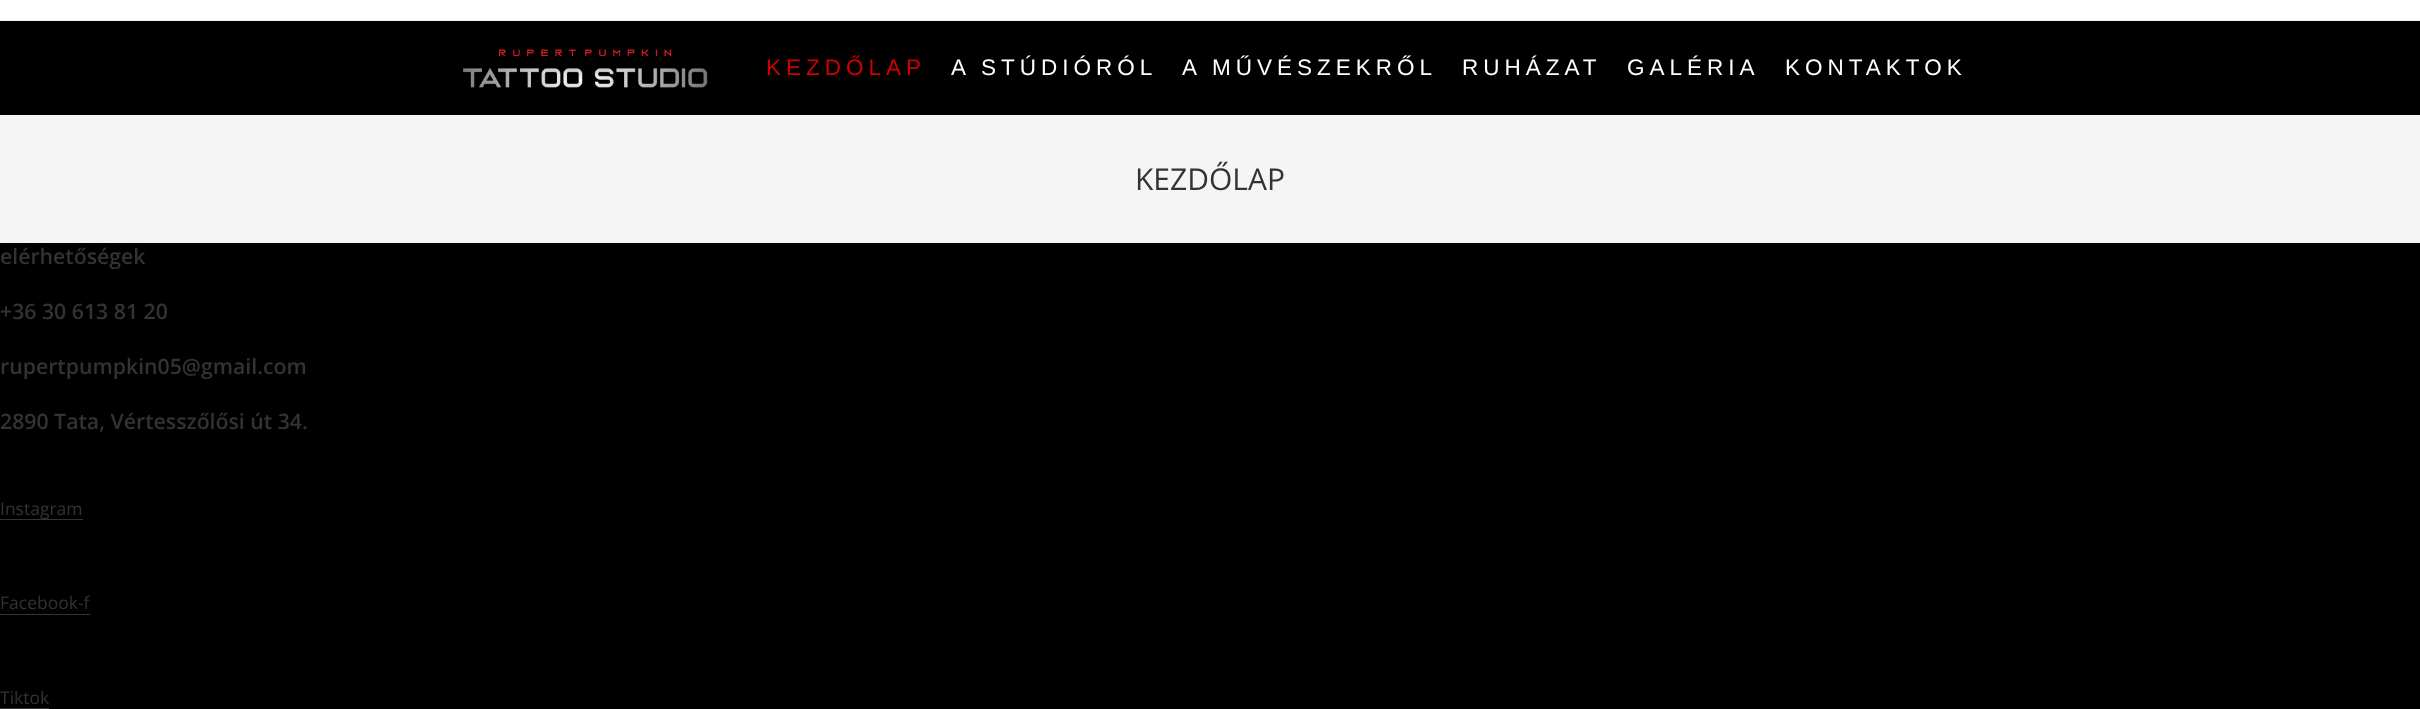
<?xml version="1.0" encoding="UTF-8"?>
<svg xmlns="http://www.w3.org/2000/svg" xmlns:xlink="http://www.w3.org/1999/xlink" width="2420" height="709">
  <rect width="100%" height="100%" fill="#000000" />
  <rect width="2420" height="20" fill="#ffffff" />
  <rect y="20" width="2420" height="1" fill="#f1f1f1" />
  <image x="463" y="49" width="245" height="39" xlink:href="image1.png" />
  <rect y="115" width="2420" height="128" fill="#f5f5f5" />
  <rect y="519" width="83" height="1" fill="#333333" />
  <rect y="614" width="90" height="1" fill="#333333" />
  <rect y="708" width="49" height="1" fill="#333333" />
  <text x="766" y="75" style="font-family: Liberation Sans; font-size: 22.5px; letter-spacing: 5px; fill: #d10000">KEZDŐLAP</text>
  <text x="951" y="75" style="font-family: Liberation Sans; font-size: 22.5px; letter-spacing: 5px; fill: #ffffff">A STÚDIÓRÓL</text>
  <text x="1182" y="75" style="font-family: Liberation Sans; font-size: 22.5px; letter-spacing: 5px; fill: #ffffff">A MŰVÉSZEKRŐL</text>
  <text x="1462" y="75" style="font-family: Liberation Sans; font-size: 22.5px; letter-spacing: 5px; fill: #ffffff">RUHÁZAT</text>
  <text x="1627" y="75" style="font-family: Liberation Sans; font-size: 22.5px; letter-spacing: 5px; fill: #ffffff">GALÉRIA</text>
  <text x="1785" y="75" style="font-family: Liberation Sans; font-size: 22.5px; letter-spacing: 5px; fill: #ffffff">KONTAKTOK</text>
  <text x="1135" y="190" style="font-family: Open Sans; font-size: 30px; fill: #333333">KEZDŐLAP</text>
  <text x="0" y="264" style="font-family: Open Sans; font-size: 21.25px; font-weight: 600; fill: #333333">elérhetőségek</text>
  <text x="0" y="319" style="font-family: Open Sans; font-size: 21.25px; font-weight: 600; fill: #333333">+36 30 613 81 20</text>
  <text x="0" y="374" style="font-family: Open Sans; font-size: 21.25px; font-weight: 600; fill: #333333">rupertpumpkin05@gmail.com</text>
  <text x="0" y="429" style="font-family: Open Sans; font-size: 21.25px; font-weight: 600; fill: #333333">2890 Tata, Vértesszőlősi út 34.</text>
  <text x="0" y="515" style="font-family: Open Sans; font-size: 17.5px; fill: #333333">Instagram</text>
  <text x="0" y="609" style="font-family: Open Sans; font-size: 17.5px; fill: #333333">Facebook-f</text>
  <text x="0" y="704" style="font-family: Open Sans; font-size: 17.5px; fill: #333333">Tiktok</text>
</svg>
